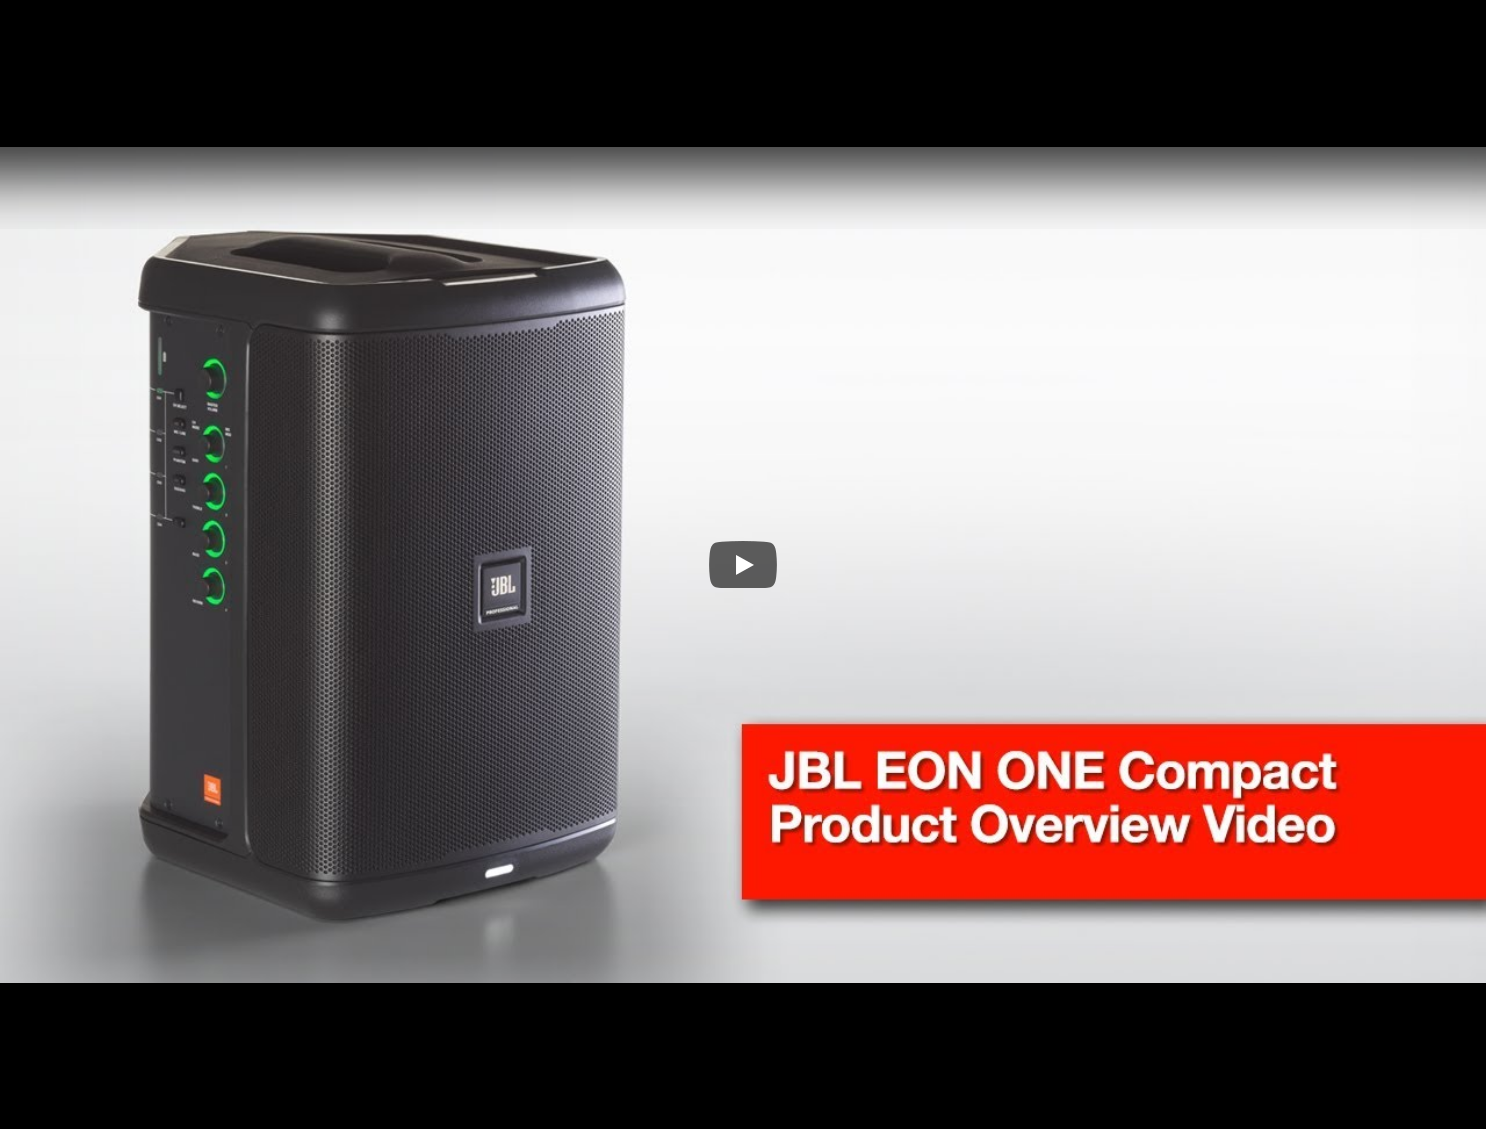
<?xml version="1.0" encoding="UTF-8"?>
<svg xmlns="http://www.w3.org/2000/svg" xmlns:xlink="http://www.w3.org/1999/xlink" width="1486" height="1129">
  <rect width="100%" height="100%" fill="#000000" />
  <image x="0" y="147" width="1486" height="836" xlink:href="image1.png" />
  <image x="0" y="147" width="1486" height="82" xlink:href="image2.png" />
  <image x="709" y="541" width="68" height="47" xlink:href="image3.png" />
</svg>
